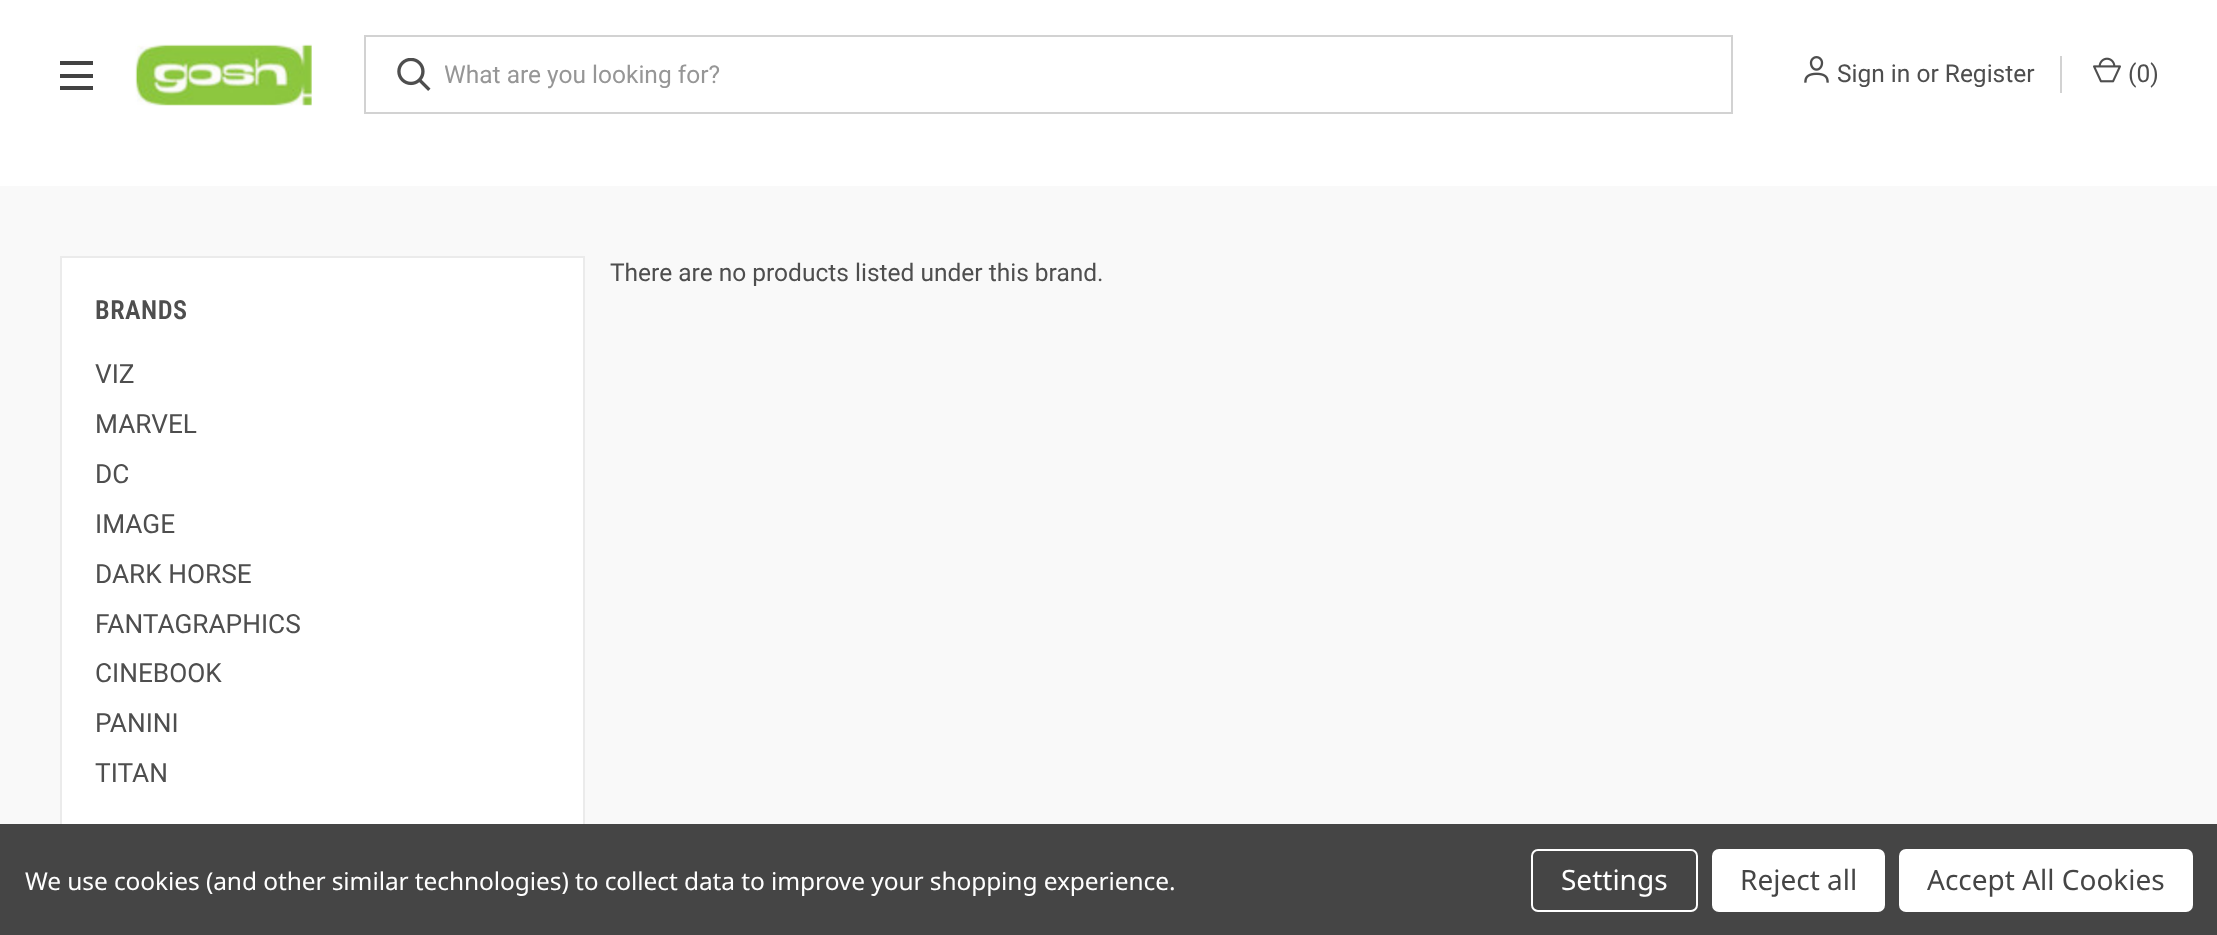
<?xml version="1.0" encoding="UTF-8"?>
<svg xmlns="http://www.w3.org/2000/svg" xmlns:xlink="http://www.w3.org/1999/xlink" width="2217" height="935">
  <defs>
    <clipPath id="clip1"><rect x="445" y="61" width="1261" height="28" /></clipPath>
  </defs>
  <rect width="100%" height="100%" fill="#ffffff" />
  <rect x="60" y="74" width="33" height="4" fill="#424242" />
  <rect x="60" y="61" width="33" height="4" fill="#424242" />
  <rect x="60" y="86" width="33" height="4" fill="#424242" />
  <image x="135" y="44" width="177" height="62" xlink:href="image1.png" />
  <rect x="365" y="36" width="1367" height="77" fill="none" stroke="#d2d2d2" stroke-width="2" />
  <image x="397" y="58" width="34" height="33" xlink:href="image2.png" />
  <image x="1804" y="56" width="25" height="27" xlink:href="image3.png" />
  <rect x="2060" y="56" width="2" height="37" fill="#d2d2d2" />
  <image x="2093" y="57" width="28" height="26" xlink:href="image4.png" />
  <rect y="186" width="2217" height="638" fill="#f9f9f9" />
  <rect x="62" y="258" width="521" height="566" fill="#ffffff" />
  <rect x="61" y="257" width="523" height="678" fill="none" stroke="#ebebeb" stroke-width="2" />
  <rect y="824" width="2217" height="111" fill="#454545" />
  <rect x="1532" y="850" width="165" height="61" rx="6" fill="none" stroke="#ffffff" stroke-width="2" />
  <rect x="1712" y="849" width="173" height="63" rx="7" fill="#ffffff" />
  <rect x="1899" y="849" width="294" height="63" rx="7" fill="#ffffff" />
  <g clip-path="url(#clip1)">
    <text x="444" y="83" style="font-family: Roboto; font-size: 24.5px; fill: #969696">What are you looking for?</text>
  </g>
  <text x="1837" y="82" style="font-family: Roboto; font-size: 24.5px; fill: #4e4e4e">Sign in or Register</text>
  <text x="2128" y="82" style="font-family: Roboto; font-size: 24.5px; fill: #4e4e4e">(0)</text>
  <text x="610" y="281" style="font-family: Roboto; font-size: 24.5px; fill: #4e4e4e">There are no products listed under this brand.</text>
  <text x="95" y="319" style="font-family: Roboto Condensed; font-size: 26.25px; font-weight: 600; letter-spacing: 0.5px; fill: #4e4e4e">BRANDS</text>
  <text x="95" y="383" style="font-family: Roboto; font-size: 26.25px; fill: #4e4e4e">VIZ</text>
  <text x="95" y="433" style="font-family: Roboto; font-size: 26.25px; fill: #4e4e4e">MARVEL</text>
  <text x="95" y="483" style="font-family: Roboto; font-size: 26.25px; fill: #4e4e4e">DC</text>
  <text x="95" y="533" style="font-family: Roboto; font-size: 26.25px; fill: #4e4e4e">IMAGE</text>
  <text x="95" y="583" style="font-family: Roboto; font-size: 26.25px; fill: #4e4e4e">DARK HORSE</text>
  <text x="95" y="633" style="font-family: Roboto; font-size: 26.25px; fill: #4e4e4e">FANTAGRAPHICS</text>
  <text x="95" y="682" style="font-family: Roboto; font-size: 26.25px; fill: #4e4e4e">CINEBOOK</text>
  <text x="95" y="732" style="font-family: Roboto; font-size: 26.25px; fill: #4e4e4e">PANINI</text>
  <text x="95" y="782" style="font-family: Roboto; font-size: 26.25px; fill: #4e4e4e">TITAN</text>
  <text x="25" y="890" style="font-family: Noto Sans; font-size: 24.5px; letter-spacing: -0.09px; fill: #ffffff">We use cookies (and other similar technologies) to collect data to improve your shopping experience.</text>
  <text x="1561" y="890" style="font-family: Noto Sans; font-size: 28px; fill: #ffffff">Settings</text>
  <text x="1740" y="890" style="font-family: Noto Sans; font-size: 28px; fill: #454545">Reject all</text>
  <text x="1927" y="890" style="font-family: Noto Sans; font-size: 28px; fill: #454545">Accept All Cookies</text>
</svg>
